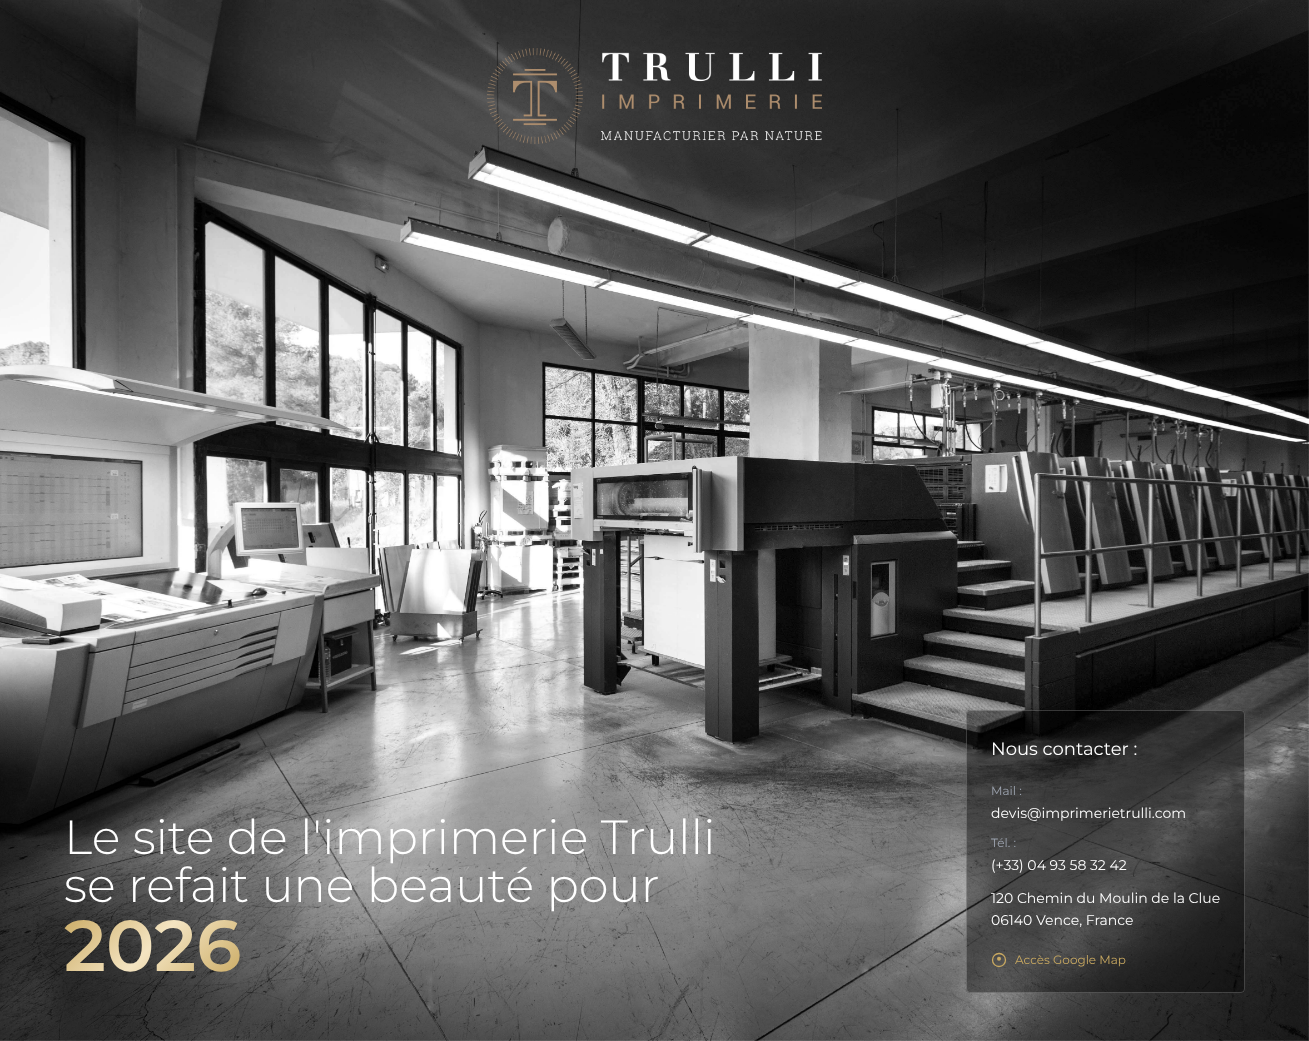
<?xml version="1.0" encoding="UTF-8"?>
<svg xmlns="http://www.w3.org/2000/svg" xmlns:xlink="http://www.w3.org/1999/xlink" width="1309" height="1041">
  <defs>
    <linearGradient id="g1" gradientUnits="userSpaceOnUse" x1="90" y1="883" x2="215" y2="1007"><stop offset="0" stop-color="#c9a961" /><stop offset="0.5" stop-color="#f4e4c1" /><stop offset="1" stop-color="#c9a961" /></linearGradient>
  </defs>
  <rect width="100%" height="100%" fill="#ffffff" />
  <image x="0" y="0" width="1309" height="1041" xlink:href="image1.png" />
  <image x="487" y="48" width="335" height="96" xlink:href="image2.png" />
  <rect x="966" y="710" width="279" height="283" rx="4" fill="#000000" fill-opacity="0.4" />
  <rect x="966.5" y="710.5" width="278" height="282" rx="3.5" fill="none" stroke="#ffffff" stroke-opacity="0.2" />
  <circle cx="999" cy="960" r="6.5" fill="none" stroke="#c9a961" stroke-width="1.3" />
  <circle cx="999" cy="958.7" r="2" fill="#c9a961" />
  <text x="64" y="854" style="font-family: Montserrat; font-size: 48px; font-weight: 300; fill: #ffffff">Le site de l'imprimerie Trulli</text>
  <text x="64" y="902" style="font-family: Montserrat; font-size: 48px; font-weight: 300; fill: #ffffff">se refait une beauté pour</text>
  <text x="64" y="971" style="font-family: Montserrat; font-size: 72px; font-weight: 600; fill: url(#g1)">2026</text>
  <text x="991" y="755" style="font-family: Montserrat; font-size: 18px; fill: #ffffff">Nous contacter :</text>
  <text x="991" y="795" style="font-family: Montserrat; font-size: 12px; fill: #9ca3af">Mail :</text>
  <text x="991" y="818" style="font-family: Montserrat; font-size: 14px; fill: #ffffff">devis@imprimerietrulli.com</text>
  <text x="991" y="847" style="font-family: Montserrat; font-size: 12px; fill: #9ca3af">Tél. :</text>
  <text x="991" y="870" style="font-family: Montserrat; font-size: 14px; fill: #ffffff">(+33) 04 93 58 32 42</text>
  <text x="991" y="903" style="font-family: Montserrat; font-size: 14px; fill: #ffffff">120 Chemin du Moulin de la Clue</text>
  <text x="991" y="925" style="font-family: Montserrat; font-size: 14px; fill: #ffffff">06140 Vence, France</text>
  <text x="1015" y="964" style="font-family: Montserrat; font-size: 12px; fill: #c9a961">Accès Google Map</text>
</svg>
